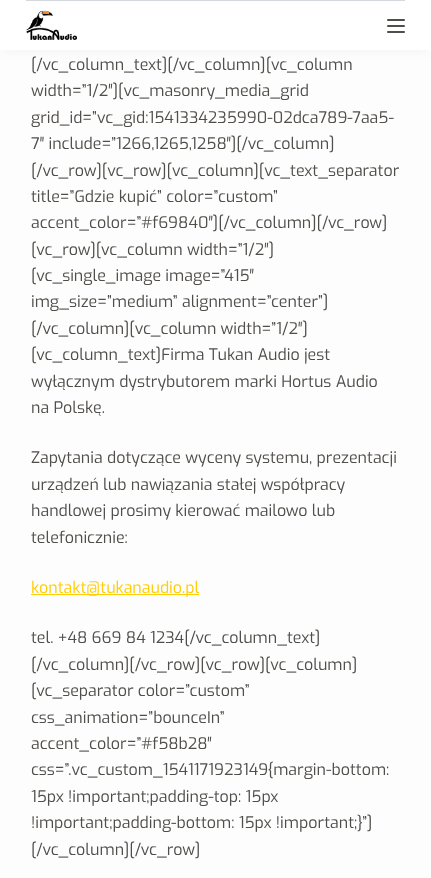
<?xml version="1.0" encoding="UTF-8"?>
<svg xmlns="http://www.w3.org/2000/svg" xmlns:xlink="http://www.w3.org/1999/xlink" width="431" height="878">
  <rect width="100%" height="100%" fill="#fdfdfd" />
  <rect x="3" y="8" width="425" height="44" fill="#2c3e50" fill-opacity="0.05" filter="blur(5px)" />
  <rect width="431" height="50" fill="#ffffff" />
  <rect x="26" width="379" height="1" fill="#d5d8dc" />
  <image x="26" y="10" width="51" height="30" xlink:href="image1.png" />
  <rect x="387" y="19" width="18" height="2" rx="1" fill="#504e4a" />
  <rect x="387" y="25" width="18" height="2" rx="1" fill="#504e4a" />
  <rect x="387" y="31" width="18" height="2" rx="1" fill="#504e4a" />
  <rect x="31" y="594" width="168" height="1" fill="#ffcd05" />
  <text x="31" y="70" style="font-family: Exo; font-size: 16px; fill: #504e4a">[/vc_column_text][/vc_column][vc_column</text>
  <text x="31" y="96" style="font-family: Exo; font-size: 16px; fill: #504e4a">width=”1/2″][vc_masonry_media_grid</text>
  <text x="31" y="123" style="font-family: Exo; font-size: 16px; fill: #504e4a">grid_id=”vc_gid:1541334235990-02dca789-7aa5-</text>
  <text x="31" y="149" style="font-family: Exo; font-size: 16px; fill: #504e4a">7″ include=”1266,1265,1258″][/vc_column]</text>
  <text x="31" y="176" style="font-family: Exo; font-size: 16px; fill: #504e4a">[/vc_row][vc_row][vc_column][vc_text_separator</text>
  <text x="31" y="202" style="font-family: Exo; font-size: 16px; fill: #504e4a">title=”Gdzie kupić” color=”custom”</text>
  <text x="31" y="228" style="font-family: Exo; font-size: 16px; fill: #504e4a">accent_color=”#f69840″][/vc_column][/vc_row]</text>
  <text x="31" y="255" style="font-family: Exo; font-size: 16px; fill: #504e4a">[vc_row][vc_column width=”1/2″]</text>
  <text x="31" y="281" style="font-family: Exo; font-size: 16px; fill: #504e4a">[vc_single_image image=”415″</text>
  <text x="31" y="307" style="font-family: Exo; font-size: 16px; fill: #504e4a">img_size=”medium” alignment=”center”]</text>
  <text x="31" y="334" style="font-family: Exo; font-size: 16px; fill: #504e4a">[/vc_column][vc_column width=”1/2″]</text>
  <text x="31" y="360" style="font-family: Exo; font-size: 16px; fill: #504e4a">[vc_column_text]Firma Tukan Audio jest</text>
  <text x="31" y="387" style="font-family: Exo; font-size: 16px; fill: #504e4a">wyłącznym dystrybutorem marki Hortus Audio</text>
  <text x="31" y="413" style="font-family: Exo; font-size: 16px; fill: #504e4a">na Polskę.</text>
  <text x="31" y="463" style="font-family: Exo; font-size: 16px; fill: #504e4a">Zapytania dotyczące wyceny systemu, prezentacji</text>
  <text x="31" y="490" style="font-family: Exo; font-size: 16px; fill: #504e4a">urządzeń lub nawiązania stałej współpracy</text>
  <text x="31" y="516" style="font-family: Exo; font-size: 16px; fill: #504e4a">handlowej prosimy kierować mailowo lub</text>
  <text x="31" y="543" style="font-family: Exo; font-size: 16px; fill: #504e4a">telefonicznie:</text>
  <text x="31" y="593" style="font-family: Exo; font-size: 16px; fill: #ffcd05">kontakt@tukanaudio.pl</text>
  <text x="31" y="643" style="font-family: Exo; font-size: 16px; fill: #504e4a">tel. +48 669 84 1234[/vc_column_text]</text>
  <text x="31" y="670" style="font-family: Exo; font-size: 16px; fill: #504e4a">[/vc_column][/vc_row][vc_row][vc_column]</text>
  <text x="31" y="696" style="font-family: Exo; font-size: 16px; fill: #504e4a">[vc_separator color=”custom”</text>
  <text x="31" y="723" style="font-family: Exo; font-size: 16px; fill: #504e4a">css_animation=”bounceIn”</text>
  <text x="31" y="749" style="font-family: Exo; font-size: 16px; fill: #504e4a">accent_color=”#f58b28″</text>
  <text x="31" y="775" style="font-family: Exo; font-size: 16px; fill: #504e4a">css=”.vc_custom_1541171923149{margin-bottom:</text>
  <text x="31" y="802" style="font-family: Exo; font-size: 16px; fill: #504e4a">15px !important;padding-top: 15px</text>
  <text x="31" y="828" style="font-family: Exo; font-size: 16px; fill: #504e4a">!important;padding-bottom: 15px !important;}”]</text>
  <text x="31" y="855" style="font-family: Exo; font-size: 16px; fill: #504e4a">[/vc_column][/vc_row]</text>
</svg>
